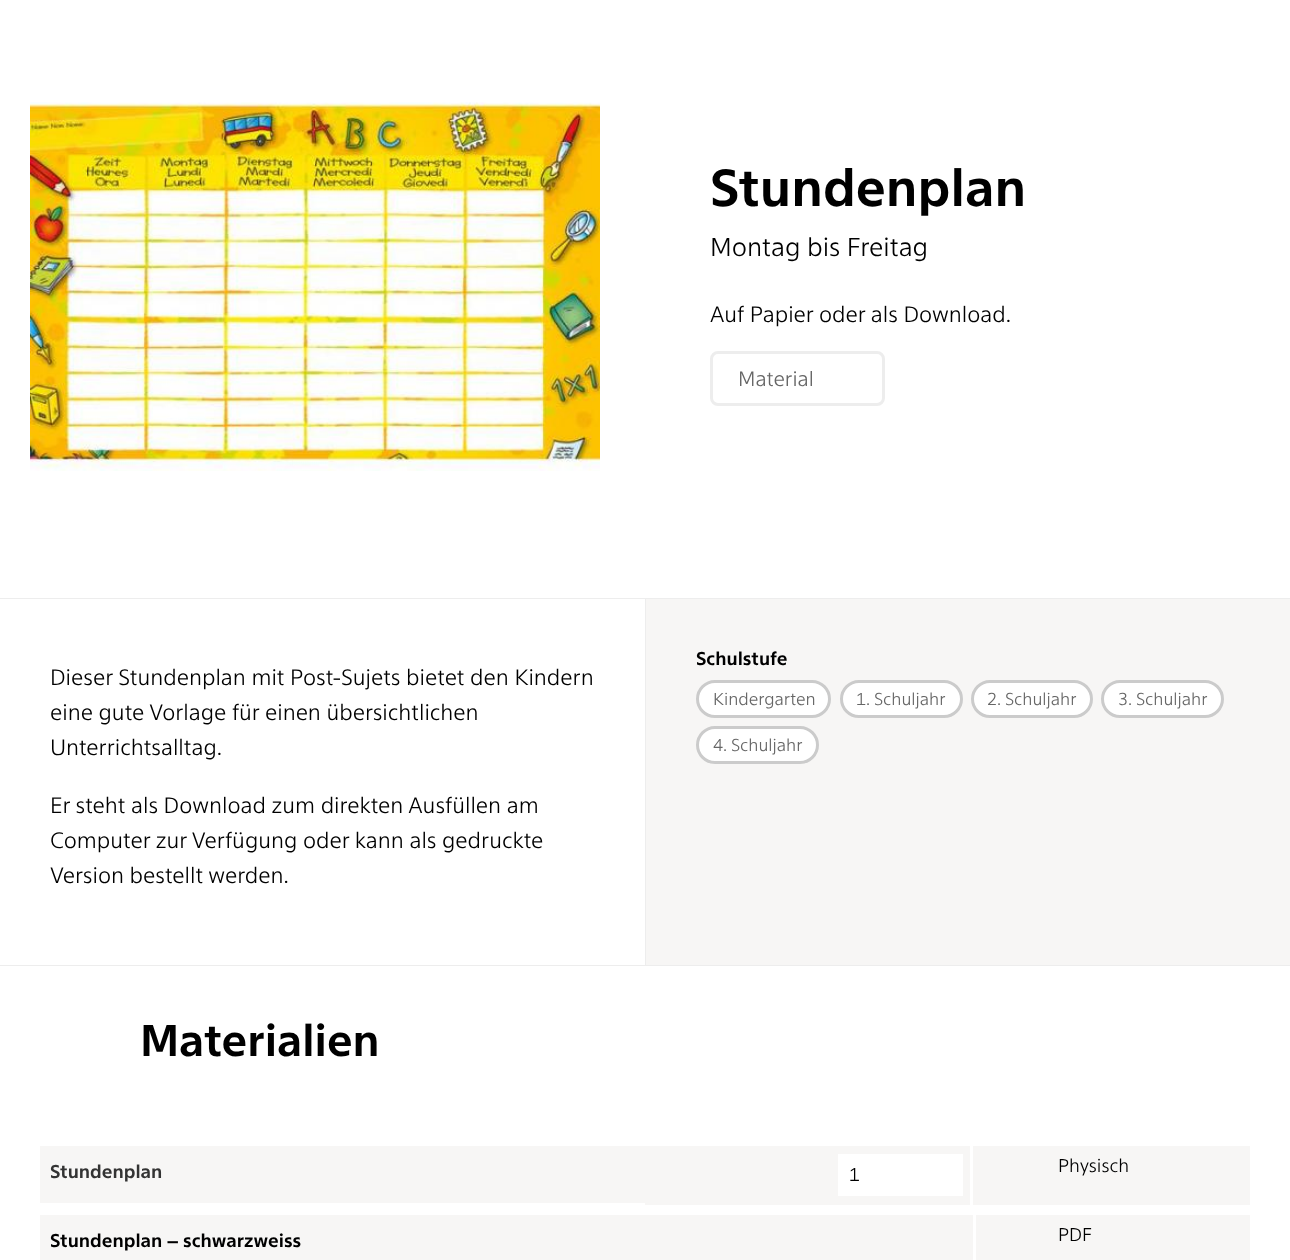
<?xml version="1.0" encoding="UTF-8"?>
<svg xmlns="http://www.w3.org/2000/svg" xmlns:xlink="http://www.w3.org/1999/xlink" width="1290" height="1260">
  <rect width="100%" height="100%" fill="#ffffff" />
  <rect y="598" width="1290" height="1" fill="#ededed" />
  <image x="30" y="102" width="570" height="369" xlink:href="image1.png" />
  <rect x="711.5" y="352.5" width="172" height="52" rx="6.5" fill="none" stroke="#ededed" stroke-width="3" />
  <rect y="965" width="1290" height="1" fill="#ededed" />
  <rect x="646" y="599" width="644" height="366" fill="#f7f6f5" />
  <rect x="645" y="599" width="1" height="366" fill="#ededed" />
  <rect x="697.5" y="681.5" width="132" height="35" rx="17.5" fill="#ffffff" stroke="#cbcbcb" stroke-width="3" />
  <rect x="841.5" y="681.5" width="120" height="35" rx="17.5" fill="#ffffff" stroke="#cbcbcb" stroke-width="3" />
  <rect x="972.5" y="681.5" width="119" height="35" rx="17.5" fill="#ffffff" stroke="#cbcbcb" stroke-width="3" />
  <rect x="1102.5" y="681.5" width="120" height="35" rx="17.5" fill="#ffffff" stroke="#cbcbcb" stroke-width="3" />
  <rect x="697.5" y="727.5" width="120" height="35" rx="17.5" fill="#ffffff" stroke="#cbcbcb" stroke-width="3" />
  <rect x="40" y="1146" width="1210" height="59" fill="#f7f6f5" />
  <rect x="40" y="1203" width="605" height="2" fill="#ffffff" />
  <rect x="838" y="1154" width="125" height="42" fill="#ffffff" />
  <rect x="970" y="1146" width="3" height="59" fill="#ffffff" />
  <rect x="40" y="1215" width="1210" height="45" fill="#f7f6f5" />
  <rect x="973" y="1215" width="3" height="45" fill="#ffffff" />
  <text x="710" y="206" style="font-family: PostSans; font-size: 52.75px; font-weight: bold; fill: #000000">Stundenplan</text>
  <text x="710" y="256" style="font-family: PostSans; font-size: 26.25px; font-weight: 300; fill: #000000">Montag bis Freitag</text>
  <text x="710" y="322" style="font-family: PostSans; font-size: 22.5px; font-weight: 300; fill: #000000">Auf Papier oder als Download.</text>
  <text x="738" y="386" style="font-family: PostSans; font-size: 21px; font-weight: 300; fill: #666666">Material</text>
  <text x="50" y="685" style="font-family: PostSans; font-size: 22.5px; font-weight: 300; fill: #000000">Dieser Stundenplan mit Post-Sujets bietet den Kindern</text>
  <text x="50" y="720" style="font-family: PostSans; font-size: 22.5px; font-weight: 300; fill: #000000">eine gute Vorlage für einen übersichtlichen</text>
  <text x="50" y="755" style="font-family: PostSans; font-size: 22.5px; font-weight: 300; fill: #000000">Unterrichtsalltag.</text>
  <text x="50" y="813" style="font-family: PostSans; font-size: 22.5px; font-weight: 300; fill: #000000">Er steht als Download zum direkten Ausfüllen am</text>
  <text x="50" y="848" style="font-family: PostSans; font-size: 22.5px; font-weight: 300; fill: #000000">Computer zur Verfügung oder kann als gedruckte</text>
  <text x="50" y="883" style="font-family: PostSans; font-size: 22.5px; font-weight: 300; fill: #000000">Version bestellt werden.</text>
  <text x="696" y="665" style="font-family: PostSans; font-size: 18.75px; font-weight: bold; fill: #000000">Schulstufe</text>
  <text x="713" y="705" style="font-family: PostSans; font-size: 17.5px; font-weight: 300; fill: #666666">Kindergarten</text>
  <text x="856" y="705" style="font-family: PostSans; font-size: 17.5px; font-weight: 300; fill: #666666">1. Schuljahr</text>
  <text x="987" y="705" style="font-family: PostSans; font-size: 17.5px; font-weight: 300; fill: #666666">2. Schuljahr</text>
  <text x="1118" y="705" style="font-family: PostSans; font-size: 17.5px; font-weight: 300; fill: #666666">3. Schuljahr</text>
  <text x="713" y="751" style="font-family: PostSans; font-size: 17.5px; font-weight: 300; fill: #666666">4. Schuljahr</text>
  <text x="140" y="1056" style="font-family: PostSans; font-size: 45px; font-weight: bold; fill: #000000">Materialien</text>
  <text x="50" y="1178" style="font-family: PostSans; font-size: 18.75px; font-weight: bold; fill: #333333">Stundenplan</text>
  <text x="849" y="1181" style="font-family: PostSans; font-size: 18.75px; font-weight: 300; fill: #000000">1</text>
  <text x="1058" y="1172" style="font-family: PostSans; font-size: 18.75px; font-weight: 300; fill: #000000">Physisch</text>
  <text x="50" y="1247" style="font-family: PostSans; font-size: 18.75px; font-weight: bold; fill: #000000">Stundenplan – schwarzweiss</text>
  <text x="1058" y="1241" style="font-family: PostSans; font-size: 18.75px; font-weight: 300; fill: #000000">PDF</text>
</svg>
